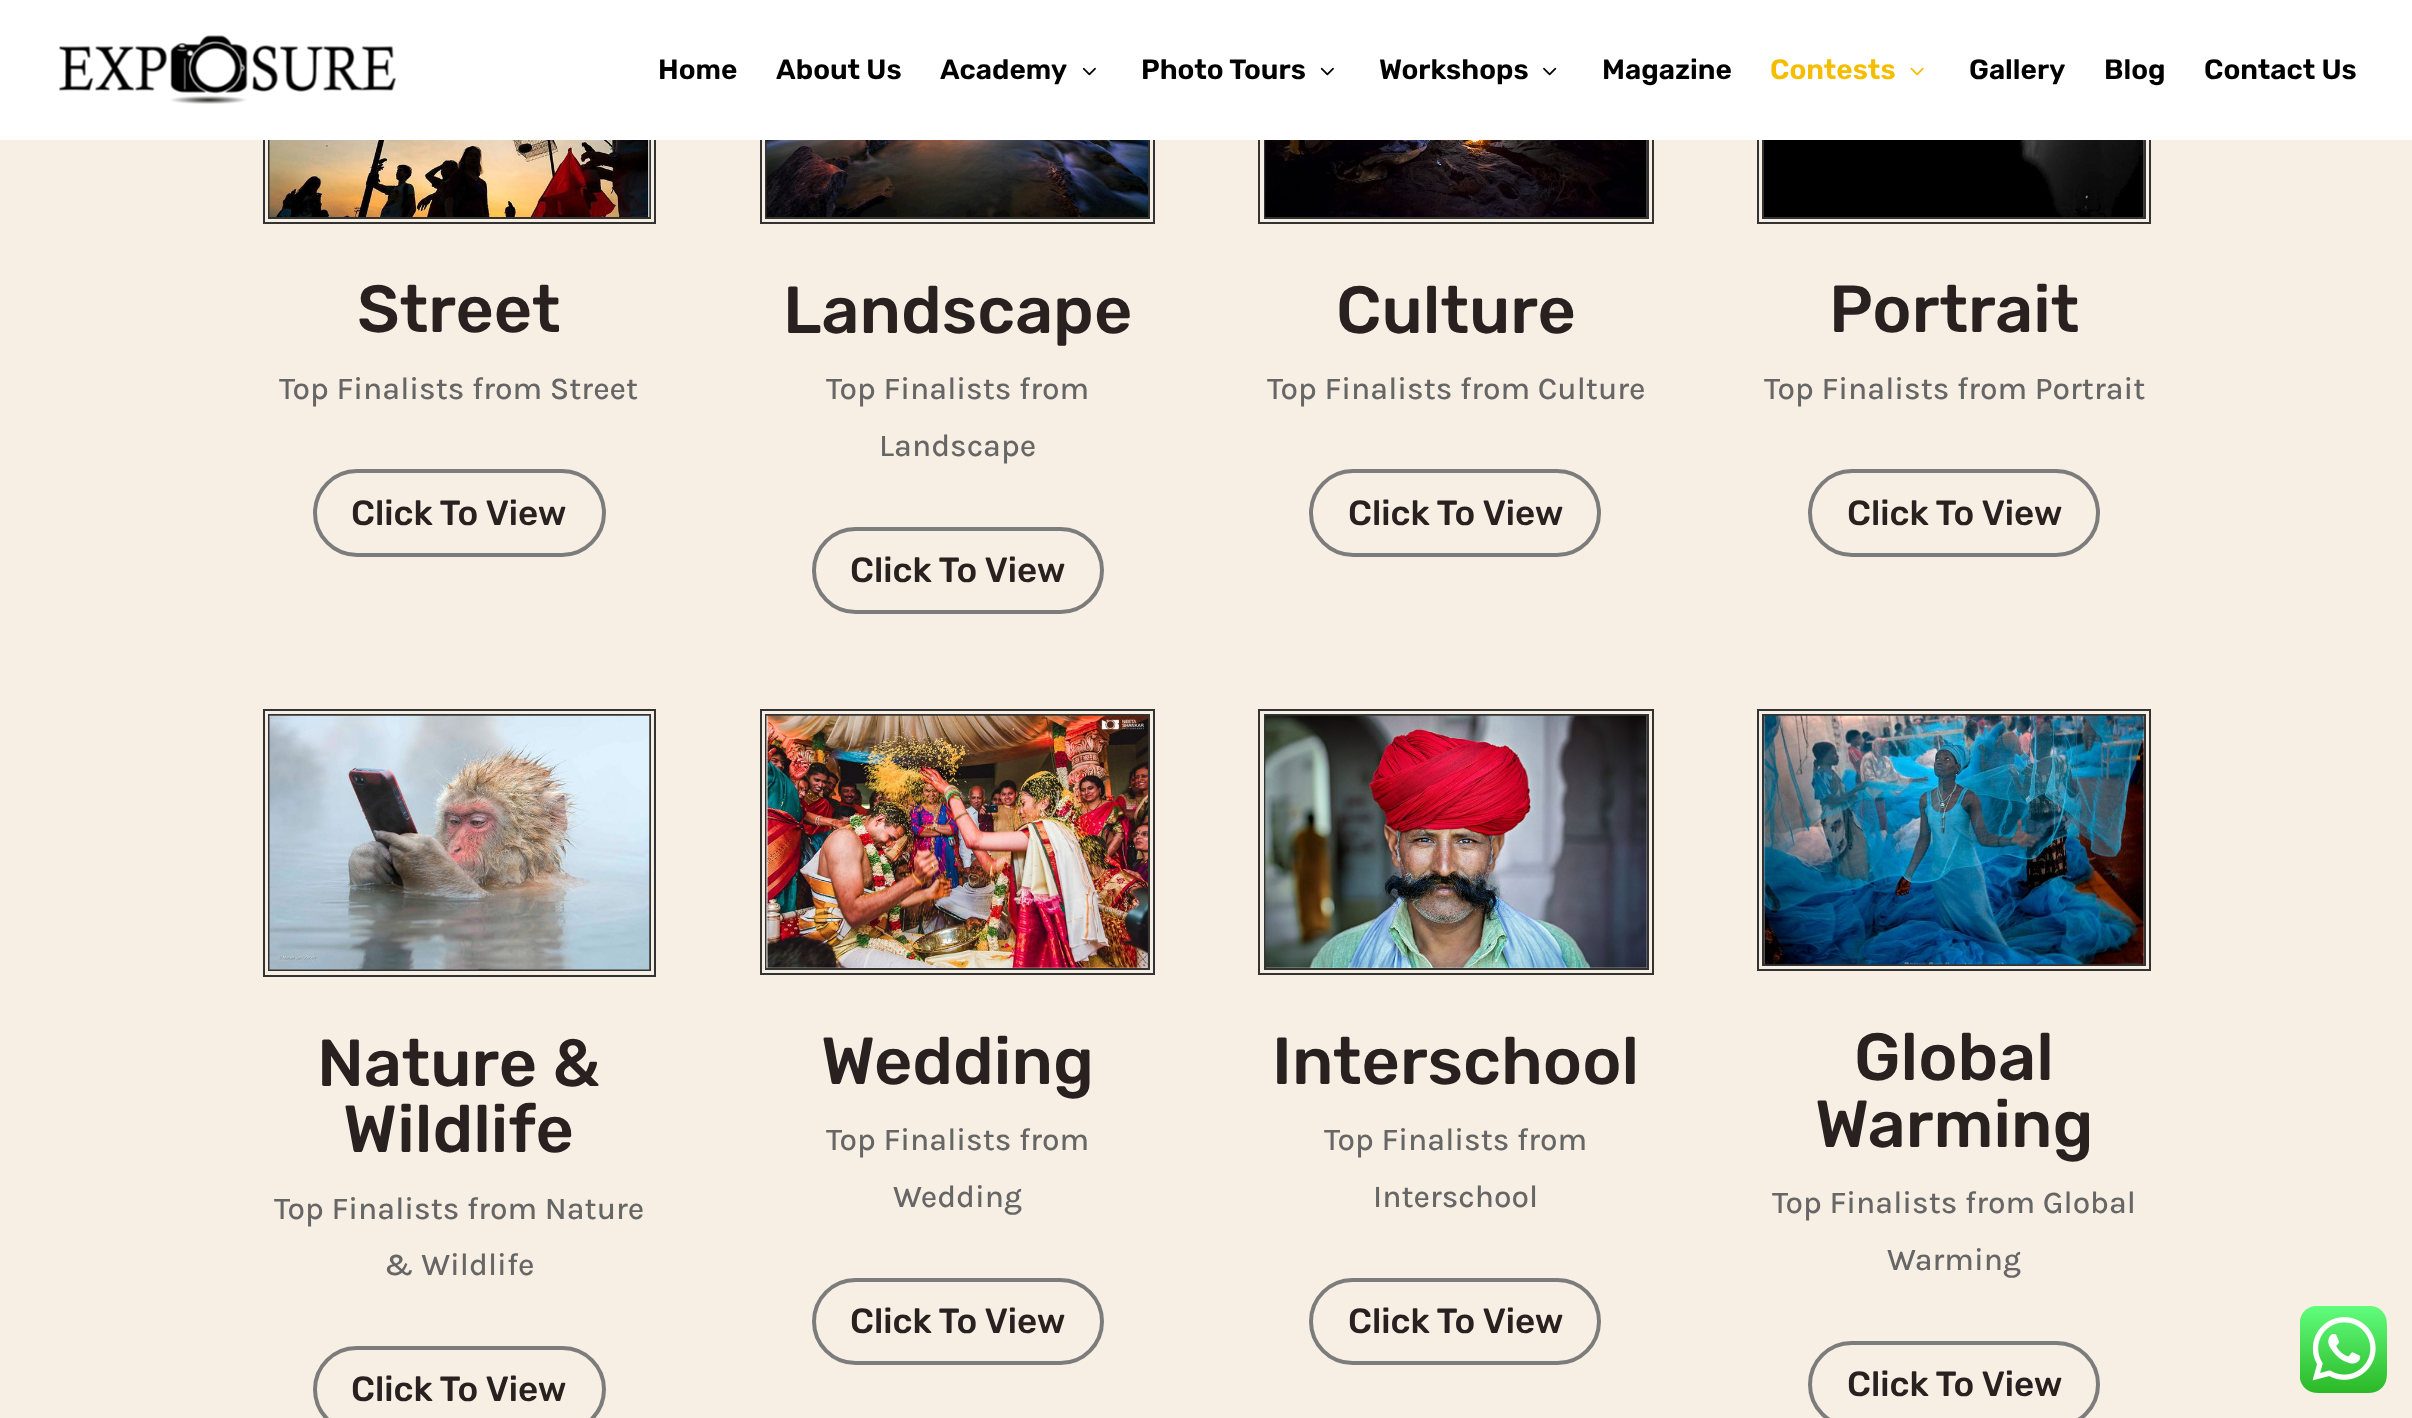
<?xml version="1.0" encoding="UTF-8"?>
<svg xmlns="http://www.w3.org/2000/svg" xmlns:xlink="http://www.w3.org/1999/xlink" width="2412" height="1418">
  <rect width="100%" height="100%" fill="#f8efe4" />
  <rect x="264" y="-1" width="391" height="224" fill="none" stroke="#333333" stroke-width="2" />
  <rect x="269" y="-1" width="381" height="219" fill="none" stroke="#333333" stroke-width="2" />
  <rect x="761" y="-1" width="393" height="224" fill="none" stroke="#333333" stroke-width="2" />
  <rect x="766" y="-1" width="383" height="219" fill="none" stroke="#333333" stroke-width="2" />
  <rect x="1259" y="-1" width="394" height="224" fill="none" stroke="#333333" stroke-width="2" />
  <rect x="1265" y="-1" width="383" height="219" fill="none" stroke="#333333" stroke-width="2" />
  <rect x="1758" y="-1" width="392" height="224" fill="none" stroke="#333333" stroke-width="2" />
  <rect x="1763" y="-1" width="382" height="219" fill="none" stroke="#333333" stroke-width="2" />
  <rect width="2412" height="140" fill="#ffffff" />
  <image x="59" y="35" width="337" height="69" xlink:href="image1.png" />
  <image x="1082" y="67" width="14" height="9" xlink:href="image2.png" />
  <image x="1320" y="67" width="14" height="9" xlink:href="image2.png" />
  <image x="1543" y="67" width="14" height="9" xlink:href="image3.png" />
  <image x="1910" y="67" width="14" height="9" xlink:href="image4.png" />
  <image x="269" y="140" width="381" height="77" xlink:href="image5.png" />
  <rect x="315" y="471" width="289" height="84" rx="42" fill="none" stroke="#7c7c7c" stroke-width="4" />
  <image x="766" y="140" width="382" height="77" xlink:href="image6.png" />
  <rect x="814" y="529" width="288" height="83" rx="41.5" fill="none" stroke="#7c7c7c" stroke-width="4" />
  <image x="1265" y="140" width="382" height="77" xlink:href="image7.png" />
  <rect x="1311" y="471" width="288" height="84" rx="42" fill="none" stroke="#7c7c7c" stroke-width="4" />
  <image x="1764" y="140" width="380" height="77" xlink:href="image8.png" />
  <rect x="1810" y="471" width="288" height="84" rx="42" fill="none" stroke="#7c7c7c" stroke-width="4" />
  <rect x="264" y="710" width="391" height="266" fill="none" stroke="#333333" stroke-width="2" />
  <rect x="269" y="715" width="381" height="255" fill="none" stroke="#333333" stroke-width="2" />
  <image x="269" y="715" width="381" height="255" xlink:href="image9.png" />
  <rect x="315" y="1348" width="289" height="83" rx="41.5" fill="none" stroke="#7c7c7c" stroke-width="4" />
  <rect x="761" y="710" width="393" height="264" fill="none" stroke="#333333" stroke-width="2" />
  <rect x="766" y="715" width="383" height="254" fill="none" stroke="#333333" stroke-width="2" />
  <image x="766" y="715" width="382" height="253" xlink:href="image10.png" />
  <rect x="814" y="1280" width="288" height="83" rx="41.5" fill="none" stroke="#7c7c7c" stroke-width="4" />
  <rect x="1259" y="710" width="394" height="264" fill="none" stroke="#333333" stroke-width="2" />
  <rect x="1265" y="715" width="383" height="254" fill="none" stroke="#333333" stroke-width="2" />
  <image x="1265" y="715" width="382" height="253" xlink:href="image11.png" />
  <rect x="1311" y="1280" width="288" height="83" rx="41.5" fill="none" stroke="#7c7c7c" stroke-width="4" />
  <rect x="1758" y="710" width="392" height="260" fill="none" stroke="#333333" stroke-width="2" />
  <rect x="1763" y="715" width="382" height="250" fill="none" stroke="#333333" stroke-width="2" />
  <image x="1764" y="715" width="380" height="250" xlink:href="image12.png" />
  <rect x="1810" y="1343" width="288" height="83" rx="41.5" fill="none" stroke="#7c7c7c" stroke-width="4" />
  <image x="2300" y="1306" width="87" height="87" xlink:href="image13.png" />
  <text x="658" y="79" style="font-family: Rubik; font-size: 28px; font-weight: 600; fill: #000000">Home</text>
  <text x="776" y="79" style="font-family: Rubik; font-size: 28px; font-weight: 600; fill: #000000">About Us</text>
  <text x="940" y="79" style="font-family: Rubik; font-size: 28px; font-weight: 600; fill: #000000">Academy</text>
  <text x="1141" y="79" style="font-family: Rubik; font-size: 28px; font-weight: 600; fill: #000000">Photo Tours</text>
  <text x="1379" y="79" style="font-family: Rubik; font-size: 28px; font-weight: 600; fill: #000000">Workshops</text>
  <text x="1602" y="79" style="font-family: Rubik; font-size: 28px; font-weight: 600; fill: #000000">Magazine</text>
  <text x="1770" y="79" style="font-family: Rubik; font-size: 28px; font-weight: 600; fill: #f5bd00">Contests</text>
  <text x="1969" y="79" style="font-family: Rubik; font-size: 28px; font-weight: 600; fill: #000000">Gallery</text>
  <text x="2104" y="79" style="font-family: Rubik; font-size: 28px; font-weight: 600; fill: #000000">Blog</text>
  <text x="2204" y="79" style="font-family: Rubik; font-size: 28px; font-weight: 600; fill: #000000">Contact Us</text>
  <text x="357" y="332" style="font-family: Rubik; font-size: 66.5px; font-weight: 300; fill: #282120">Street</text>
  <text x="279" y="399" style="font-family: Karla; font-size: 31.5px; font-weight: 500; fill: #666666">Top Finalists from Street</text>
  <text x="351" y="525" style="font-family: Rubik; font-size: 35px; font-weight: 300; fill: #282120">Click To View</text>
  <text x="783" y="333" style="font-family: Rubik; font-size: 66.5px; font-weight: 300; fill: #282120">Landscape</text>
  <text x="826" y="399" style="font-family: Karla; font-size: 31.5px; font-weight: 500; fill: #666666">Top Finalists from</text>
  <text x="879" y="456" style="font-family: Karla; font-size: 31.5px; font-weight: 500; fill: #666666">Landscape</text>
  <text x="850" y="582" style="font-family: Rubik; font-size: 35px; font-weight: 300; fill: #282120">Click To View</text>
  <text x="1336" y="333" style="font-family: Rubik; font-size: 66.5px; font-weight: 300; fill: #282120">Culture</text>
  <text x="1267" y="399" style="font-family: Karla; font-size: 31.5px; font-weight: 500; fill: #666666">Top Finalists from Culture</text>
  <text x="1348" y="525" style="font-family: Rubik; font-size: 35px; font-weight: 300; fill: #282120">Click To View</text>
  <text x="1829" y="332" style="font-family: Rubik; font-size: 66.5px; font-weight: 300; fill: #282120">Portrait</text>
  <text x="1764" y="399" style="font-family: Karla; font-size: 31.5px; font-weight: 500; fill: #666666">Top Finalists from Portrait</text>
  <text x="1847" y="525" style="font-family: Rubik; font-size: 35px; font-weight: 300; fill: #282120">Click To View</text>
  <text x="317" y="1086" style="font-family: Rubik; font-size: 66.5px; font-weight: 300; fill: #282120">Nature &amp;</text>
  <text x="343" y="1152" style="font-family: Rubik; font-size: 66.5px; font-weight: 300; fill: #282120">Wildlife</text>
  <text x="274" y="1219" style="font-family: Karla; font-size: 31.5px; font-weight: 500; fill: #666666">Top Finalists from Nature</text>
  <text x="384" y="1275" style="font-family: Karla; font-size: 31.5px; font-weight: 500; fill: #666666">&amp; Wildlife</text>
  <text x="351" y="1401" style="font-family: Rubik; font-size: 35px; font-weight: 300; fill: #282120">Click To View</text>
  <text x="821" y="1084" style="font-family: Rubik; font-size: 66.5px; font-weight: 300; fill: #282120">Wedding</text>
  <text x="826" y="1150" style="font-family: Karla; font-size: 31.5px; font-weight: 500; fill: #666666">Top Finalists from</text>
  <text x="893" y="1207" style="font-family: Karla; font-size: 31.5px; font-weight: 500; fill: #666666">Wedding</text>
  <text x="850" y="1333" style="font-family: Rubik; font-size: 35px; font-weight: 300; fill: #282120">Click To View</text>
  <text x="1272" y="1084" style="font-family: Rubik; font-size: 66.5px; font-weight: 300; fill: #282120">Interschool</text>
  <text x="1324" y="1150" style="font-family: Karla; font-size: 31.5px; font-weight: 500; fill: #666666">Top Finalists from</text>
  <text x="1373" y="1207" style="font-family: Karla; font-size: 31.5px; font-weight: 500; fill: #666666">Interschool</text>
  <text x="1348" y="1333" style="font-family: Rubik; font-size: 35px; font-weight: 300; fill: #282120">Click To View</text>
  <text x="1854" y="1080" style="font-family: Rubik; font-size: 66.5px; font-weight: 300; fill: #282120">Global</text>
  <text x="1815" y="1147" style="font-family: Rubik; font-size: 66.5px; font-weight: 300; fill: #282120">Warming</text>
  <text x="1772" y="1213" style="font-family: Karla; font-size: 31.5px; font-weight: 500; fill: #666666">Top Finalists from Global</text>
  <text x="1887" y="1270" style="font-family: Karla; font-size: 31.5px; font-weight: 500; fill: #666666">Warming</text>
  <text x="1847" y="1396" style="font-family: Rubik; font-size: 35px; font-weight: 300; fill: #282120">Click To View</text>
</svg>
